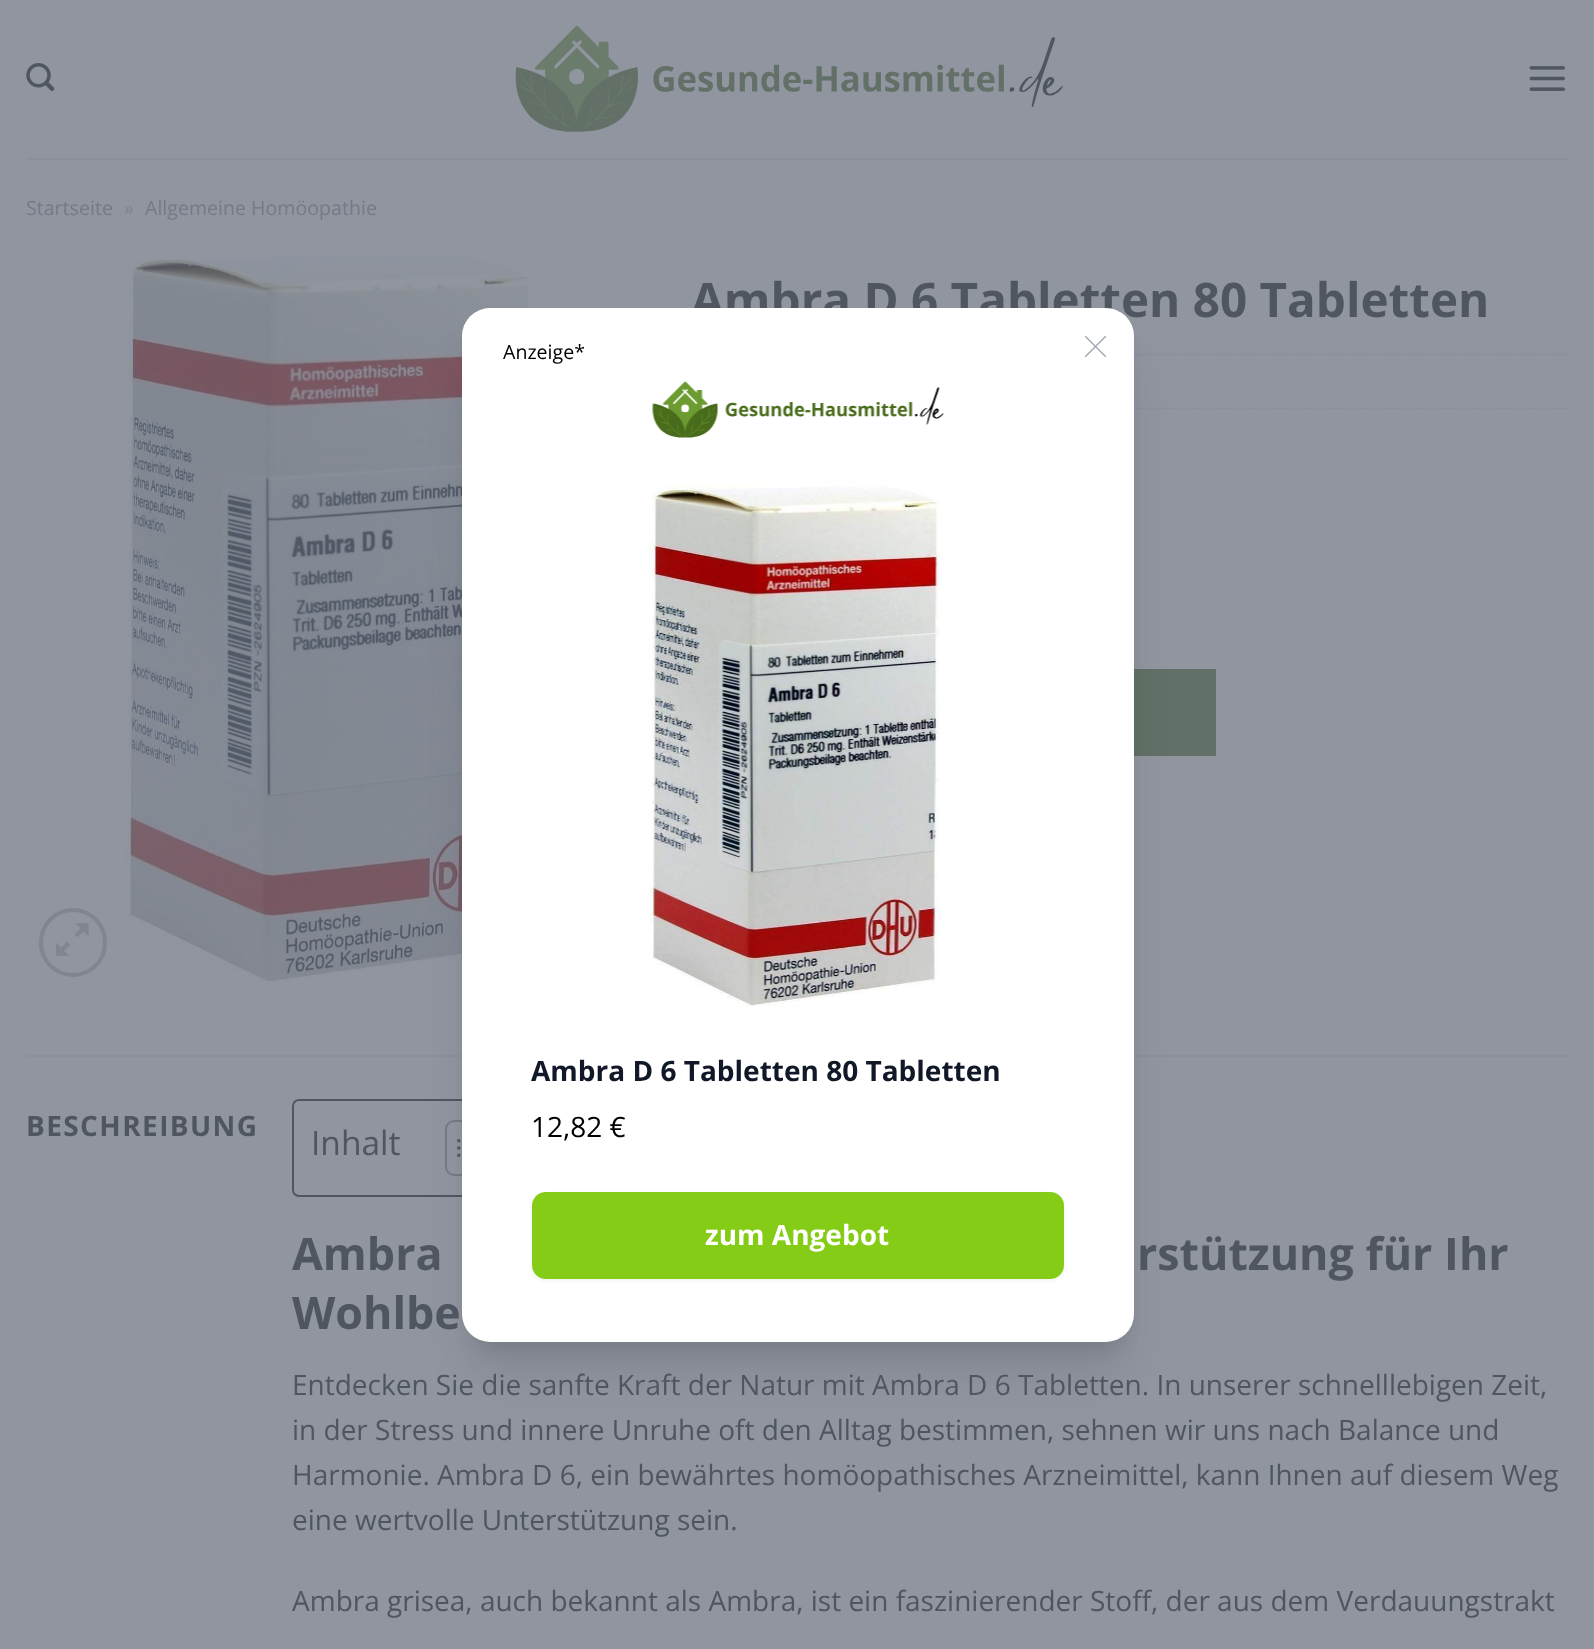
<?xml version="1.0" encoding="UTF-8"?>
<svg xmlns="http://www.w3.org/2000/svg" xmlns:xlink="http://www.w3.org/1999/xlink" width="1594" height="1649">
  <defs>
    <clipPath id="clip1"><rect x="1085" y="336" width="21" height="21" /></clipPath>
  </defs>
  <rect width="100%" height="100%" fill="#9095a0" />
  <image x="26" y="63" width="29" height="28" xlink:href="image1.png" />
  <image x="515" y="25" width="548" height="107" xlink:href="image2.png" />
  <image x="1529" y="66" width="36" height="25" xlink:href="image3.png" />
  <rect x="26" y="158" width="1542" height="2" fill="#8a8f9a" />
  <rect x="41" y="910" width="64" height="65" rx="32" fill="none" stroke="#808690" stroke-width="4" />
  <image x="56" y="923" width="33" height="33" xlink:href="image4.png" />
  <image x="124" y="250" width="413" height="734" xlink:href="image5.png" />
  <path d="M 691 354.5 h 877" fill="none" stroke="#888d97" stroke-width="1.8" stroke-dasharray="1.75 1.75" />
  <path d="M 691 408.5 h 877" fill="none" stroke="#888d97" stroke-width="1.8" stroke-dasharray="1.75 1.75" />
  <rect x="1134" y="671" width="80" height="83" fill="#627167" />
  <rect x="692" y="670" width="523" height="85" fill="none" stroke="#616f67" stroke-width="2" />
  <rect x="26" y="1055" width="1542" height="2" fill="#8b919b" />
  <rect x="293" y="1100" width="240" height="96" rx="6" fill="none" stroke="#505660" stroke-width="2" />
  <rect x="446" y="1121" width="59" height="54" rx="8" fill="none" stroke="#777a84" stroke-width="2" />
  <image x="457" y="1139" width="4" height="18" xlink:href="image6.png" />
  <rect x="473" y="333" width="651" height="1013" rx="18" fill="#000000" fill-opacity="0.1" filter="blur(9px)" />
  <rect x="471" y="352" width="654" height="1017" rx="19" fill="#000000" fill-opacity="0.1" filter="blur(22px)" />
  <text x="26" y="215" style="font-family: Open Sans; font-size: 19.6px; fill: #757b85">Startseite</text>
  <text x="124" y="215" style="font-family: Open Sans; font-size: 19.6px; fill: #7d828d">»</text>
  <text x="145" y="215" style="font-family: Open Sans; font-size: 19.6px; fill: #757b85">Allgemeine Homöopathie</text>
  <text x="691" y="317" style="font-family: Open Sans; font-size: 47.6px; font-weight: bold; fill: #505660">Ambra D 6 Tabletten 80 Tabletten</text>
  <text x="26" y="1136" style="font-family: Open Sans; font-size: 28px; font-weight: bold; letter-spacing: 1.4px; fill: #505660">BESCHREIBUNG</text>
  <text x="311" y="1155" style="font-family: Open Sans; font-size: 33.5px; fill: #505660">Inhalt</text>
  <text x="292" y="1270" style="font-family: Open Sans; font-size: 44.75px; font-weight: bold; fill: #505660">Ambra</text>
  <text x="1137" y="1270" style="font-family: Open Sans; font-size: 44.75px; font-weight: bold; fill: #505660">rstützung für Ihr</text>
  <text x="292" y="1329" style="font-family: Open Sans; font-size: 44.75px; font-weight: bold; fill: #505660">Wohlbe</text>
  <text x="292" y="1395" style="font-family: Open Sans; font-size: 28px; fill: #505660">Entdecken Sie die sanfte Kraft der Natur mit Ambra D 6 Tabletten. In unserer schnelllebigen Zeit,</text>
  <text x="292" y="1440" style="font-family: Open Sans; font-size: 28px; fill: #505660">in der Stress und innere Unruhe oft den Alltag bestimmen, sehnen wir uns nach Balance und</text>
  <text x="292" y="1485" style="font-family: Open Sans; font-size: 28px; fill: #505660">Harmonie. Ambra D 6, ein bewährtes homöopathisches Arzneimittel, kann Ihnen auf diesem Weg</text>
  <text x="292" y="1530" style="font-family: Open Sans; font-size: 28px; fill: #505660">eine wertvolle Unterstützung sein.</text>
  <text x="292" y="1611" style="font-family: Open Sans; font-size: 28px; fill: #505660">Ambra grisea, auch bekannt als Ambra, ist ein faszinierender Stoff, der aus dem Verdauungstrakt</text>
  <rect x="462" y="308" width="672" height="1034" rx="28" fill="#ffffff" />
  <text x="503" y="359" style="font-family: Open Sans; font-size: 19.6px; fill: #000000">Anzeige*</text>
  <g clip-path="url(#clip1)">
    <path d="M 1085.5 356.5 l 20 -20 m -20 0 l 20 20" fill="none" stroke="#9ca3af" stroke-width="1.3" stroke-linecap="round" stroke-linejoin="round" />
  </g>
  <image x="652" y="381" width="292" height="57" xlink:href="image7.png" />
  <image x="649" y="483" width="293" height="524" xlink:href="image8.png" />
  <text x="531" y="1081" style="font-family: Open Sans; font-size: 28px; font-weight: bold; fill: #111827">Ambra D 6 Tabletten 80 Tabletten</text>
  <text x="531" y="1137" style="font-family: Open Sans; font-size: 28px; fill: #000000">12,82 €</text>
  <rect x="532" y="1194" width="532" height="87" rx="14" fill="#000000" fill-opacity="0.05" filter="blur(2px)" />
  <rect x="532" y="1192" width="532" height="87" rx="14" fill="#84cc16" />
  <text x="705" y="1245" style="font-family: Open Sans; font-size: 28px; font-weight: bold; fill: #ffffff">zum Angebot</text>
</svg>
